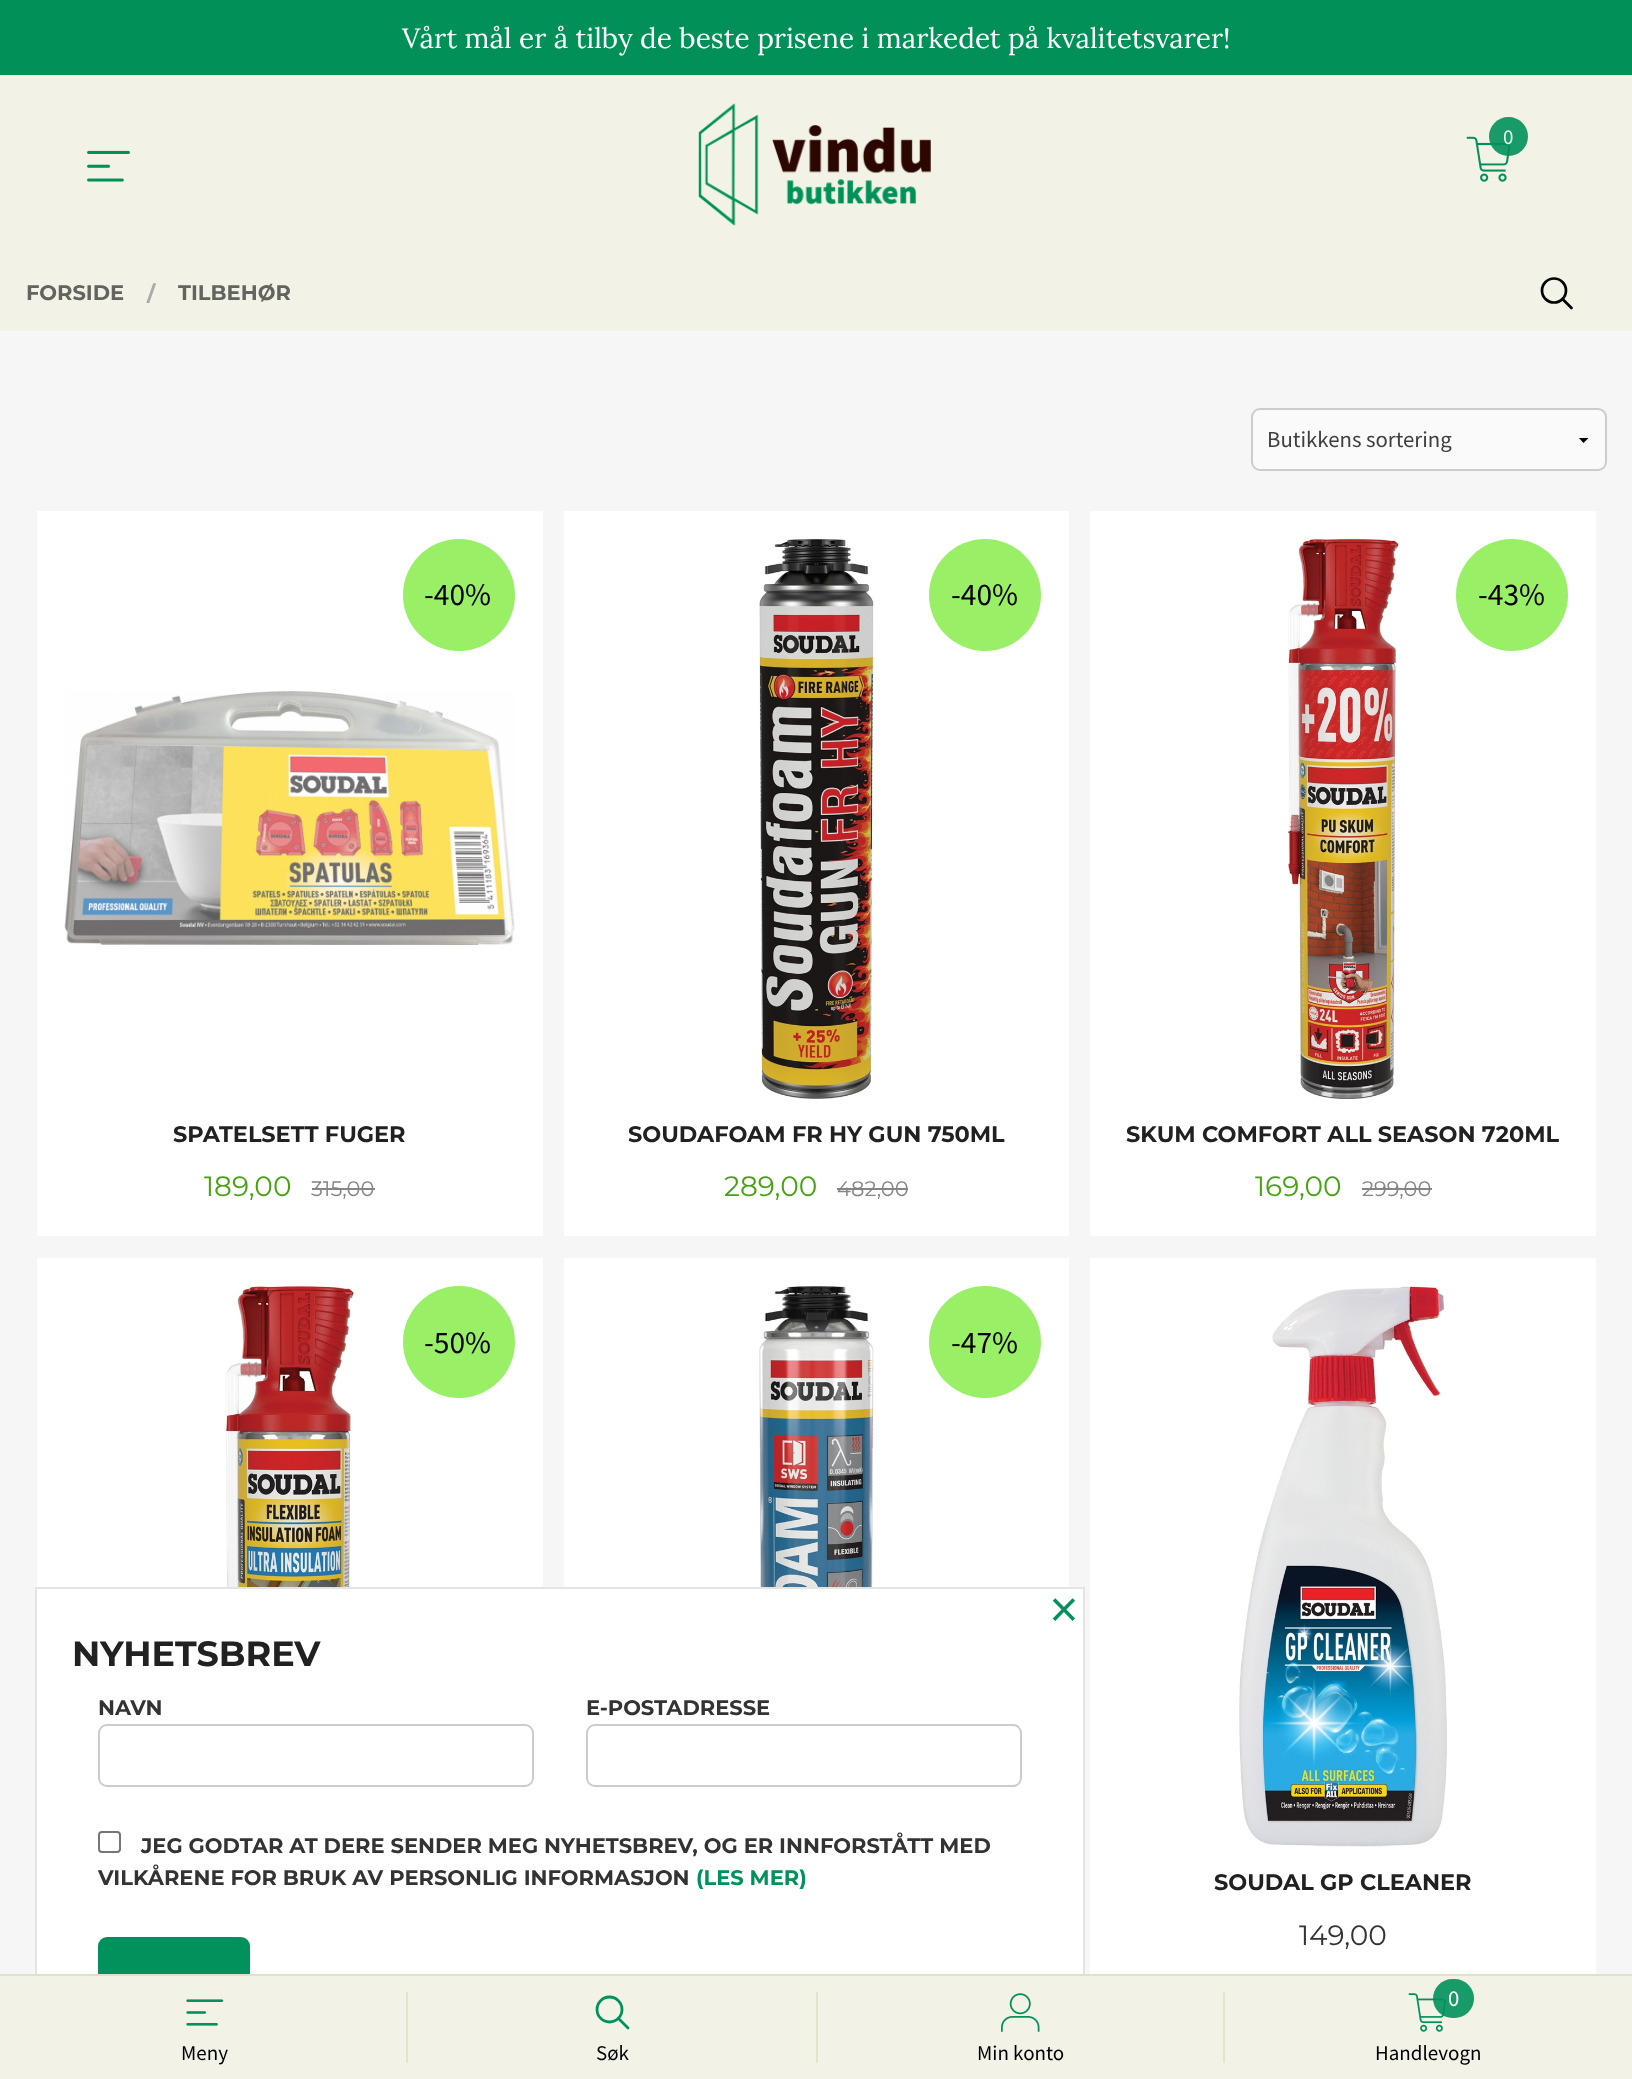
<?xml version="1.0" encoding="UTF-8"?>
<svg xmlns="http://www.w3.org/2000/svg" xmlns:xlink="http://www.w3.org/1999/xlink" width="1632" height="2079">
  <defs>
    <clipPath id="clip1"><rect x="1563" y="438" width="42" height="5" /></clipPath>
  </defs>
  <rect width="100%" height="100%" fill="#f2f2e6" />
  <rect width="1632" height="75" fill="#019058" />
  <image x="87" y="150" width="43" height="32" xlink:href="image1.png" />
  <image x="698" y="103" width="233" height="123" xlink:href="image2.png" />
  <image x="1466" y="136" width="45" height="46" xlink:href="image3.png" />
  <circle cx="1508.5" cy="136.5" r="19.5" fill="#01915b" fill-opacity="0.9" />
  <circle cx="1554" cy="290.5" r="12" fill="none" stroke="#000000" stroke-width="2.7" />
  <path d="M 1571.5 308 l -9 -9" fill="none" stroke="#000000" stroke-width="2.7" stroke-linecap="round" />
  <rect y="331" width="1632" height="1643" fill="#f6f6f6" />
  <rect x="1251" y="408" width="356" height="63" rx="9" fill="#fafafa" />
  <g clip-path="url(#clip1)">
    <path d="M 1589 437.5 l -5.5 5.5 l -5 -5.5 z" fill="#000000" />
  </g>
  <rect x="1252" y="409" width="354" height="61" rx="8" fill="none" stroke="#cccccc" stroke-width="2" />
  <rect x="37" y="511" width="506" height="725" fill="#ffffff" />
  <circle cx="459" cy="595" r="56" fill="#99ef66" />
  <rect x="312" y="1188" width="63" height="2" fill="#858585" />
  <image x="64" y="691" width="451" height="254" xlink:href="image4.png" />
  <rect x="564" y="511" width="505" height="725" fill="#ffffff" />
  <image x="759" y="539" width="115" height="560" xlink:href="image5.png" />
  <circle cx="985" cy="595" r="56" fill="#99ef66" />
  <rect x="837" y="1188" width="71" height="2" fill="#858585" />
  <rect x="1090" y="511" width="506" height="725" fill="#ffffff" />
  <image x="1288" y="539" width="111" height="560" xlink:href="image6.png" />
  <circle cx="1512" cy="595" r="56" fill="#99ef66" />
  <rect x="1362" y="1188" width="70" height="2" fill="#858585" />
  <rect x="37" y="1258" width="506" height="329" fill="#ffffff" />
  <image x="225" y="1286" width="129" height="301" xlink:href="image7.png" />
  <circle cx="459" cy="1342" r="56" fill="#99ef66" />
  <rect x="564" y="1258" width="505" height="329" fill="#ffffff" />
  <image x="759" y="1286" width="115" height="301" xlink:href="image8.png" />
  <circle cx="985" cy="1342" r="56" fill="#99ef66" />
  <rect x="1090" y="1258" width="506" height="716" fill="#ffffff" />
  <image x="1239" y="1286" width="208" height="561" xlink:href="image9.png" />
  <rect x="37" y="1589" width="1046" height="385" fill="#ffffff" />
  <rect x="36" y="1588" width="1048" height="455" fill="none" stroke="#e4e4e4" stroke-width="2" />
  <rect x="99" y="1725" width="434" height="61" rx="8" fill="none" stroke="#cccccc" stroke-width="2" />
  <rect x="587" y="1725" width="434" height="61" rx="8" fill="none" stroke="#cccccc" stroke-width="2" />
  <rect x="99" y="1832" width="21" height="20" rx="3" fill="none" stroke="#767676" stroke-width="2" />
  <rect x="98" y="1937" width="152" height="70" rx="9" fill="#00915c" />
  <rect x="35" y="1976" width="1050" height="68" fill="#f2f2e6" />
  <rect y="1974" width="1632" height="2" fill="#e1e1c4" />
  <image x="186" y="1999" width="38" height="27" xlink:href="image10.png" />
  <rect x="406" y="1992" width="2" height="71" fill="#e4e4cb" />
  <circle cx="609.5" cy="2009.5" r="12.5" fill="none" stroke="#00915c" stroke-width="2.8" />
  <path d="M 628 2028 l -9.5 -9.5" fill="none" stroke="#00915c" stroke-width="2.8" stroke-linecap="round" />
  <rect x="816" y="1992" width="2" height="71" fill="#e4e4cb" />
  <image x="1001" y="1993" width="39" height="39" xlink:href="image11.png" />
  <rect x="1223" y="1992" width="2" height="71" fill="#e4e4cb" />
  <image x="1408" y="1993" width="38" height="39" xlink:href="image12.png" />
  <rect x="1433" y="1979" width="41" height="39" rx="19.5" fill="#01915b" fill-opacity="0.9" />
  <text x="402" y="48" style="font-family: Lora; font-size: 28px; fill: #fefefd">Vårt mål er å tilby de beste prisene i markedet på kvalitetsvarer!</text>
  <text x="1503" y="144" style="font-family: Source Sans Pro; font-size: 21px; fill: #e8f5f0">0</text>
  <text x="26" y="300" style="font-family: Montserrat; font-size: 21px; font-weight: bold; fill: #636360">FORSIDE</text>
  <text x="147" y="301" style="font-family: Montserrat; font-size: 21px; font-weight: bold; fill: #aaaaaa">/</text>
  <text x="178" y="300" style="font-family: Montserrat; font-size: 21px; font-weight: bold; fill: #636360">TILBEHØR</text>
  <text x="1267" y="447" style="font-family: Source Sans Pro; font-size: 22.75px; fill: #3f3f3f">Butikkens sortering</text>
  <text x="424" y="605" style="font-family: Source Sans Pro; font-size: 31.5px; fill: #000000">-40%</text>
  <text x="204" y="1196" style="font-family: Montserrat; font-size: 28px; fill: #47a211">189,00</text>
  <text x="311" y="1196" style="font-family: Montserrat; font-size: 21px; fill: #858585">315,00</text>
  <text x="173" y="1142" style="font-family: Montserrat; font-size: 22.4px; font-weight: bold; fill: #212121">SPATELSETT FUGER</text>
  <text x="951" y="605" style="font-family: Source Sans Pro; font-size: 31.5px; fill: #000000">-40%</text>
  <text x="724" y="1196" style="font-family: Montserrat; font-size: 28px; fill: #47a211">289,00</text>
  <text x="837" y="1196" style="font-family: Montserrat; font-size: 21px; fill: #858585">482,00</text>
  <text x="628" y="1142" style="font-family: Montserrat; font-size: 22.4px; font-weight: bold; fill: #212121">SOUDAFOAM FR HY GUN 750ML</text>
  <text x="1478" y="605" style="font-family: Source Sans Pro; font-size: 31.5px; fill: #000000">-43%</text>
  <text x="1255" y="1196" style="font-family: Montserrat; font-size: 28px; fill: #47a211">169,00</text>
  <text x="1362" y="1196" style="font-family: Montserrat; font-size: 21px; fill: #858585">299,00</text>
  <text x="1126" y="1142" style="font-family: Montserrat; font-size: 22.4px; font-weight: bold; fill: #212121">SKUM COMFORT ALL SEASON 720ML</text>
  <text x="424" y="1353" style="font-family: Source Sans Pro; font-size: 31.5px; fill: #000000">-50%</text>
  <text x="951" y="1353" style="font-family: Source Sans Pro; font-size: 31.5px; fill: #000000">-47%</text>
  <text x="1214" y="1890" style="font-family: Montserrat; font-size: 22.4px; font-weight: bold; fill: #212121">SOUDAL GP CLEANER</text>
  <text x="1299" y="1945" style="font-family: Montserrat; font-size: 28px; fill: #333333">149,00</text>
  <text x="1050" y="1628" style="font-family: Source Sans Pro; font-size: 56px; fill: #00915c">×</text>
  <text x="72" y="1666" style="font-family: Montserrat; font-size: 35px; font-weight: bold; fill: #212121">NYHETSBREV</text>
  <text x="98" y="1715" style="font-family: Montserrat; font-size: 21px; font-weight: bold; fill: #333333">NAVN</text>
  <text x="586" y="1715" style="font-family: Montserrat; font-size: 21px; font-weight: bold; fill: #333333">E-POSTADRESSE</text>
  <text x="141" y="1853" style="font-family: Montserrat; font-size: 21px; font-weight: bold; fill: #333333">JEG GODTAR AT DERE SENDER MEG NYHETSBREV, OG ER INNFORSTÅTT MED</text>
  <text x="98" y="1885" style="font-family: Montserrat; font-size: 21px; font-weight: bold; fill: #333333">VILKÅRENE FOR BRUK AV PERSONLIG INFORMASJON</text>
  <text x="696" y="1885" style="font-family: Montserrat; font-size: 21px; font-weight: bold; fill: #00915c">(LES MER)</text>
  <text x="181" y="2060" style="font-family: Source Sans Pro; font-size: 21px; fill: #000000">Meny</text>
  <text x="596" y="2060" style="font-family: Source Sans Pro; font-size: 21px; fill: #000000">Søk</text>
  <text x="977" y="2060" style="font-family: Source Sans Pro; font-size: 21px; fill: #000000">Min konto</text>
  <text x="1448" y="2006" style="font-family: Source Sans Pro; font-size: 22.75px; fill: #fefefd">0</text>
  <text x="1375" y="2060" style="font-family: Source Sans Pro; font-size: 21px; fill: #000000">Handlevogn</text>
</svg>
